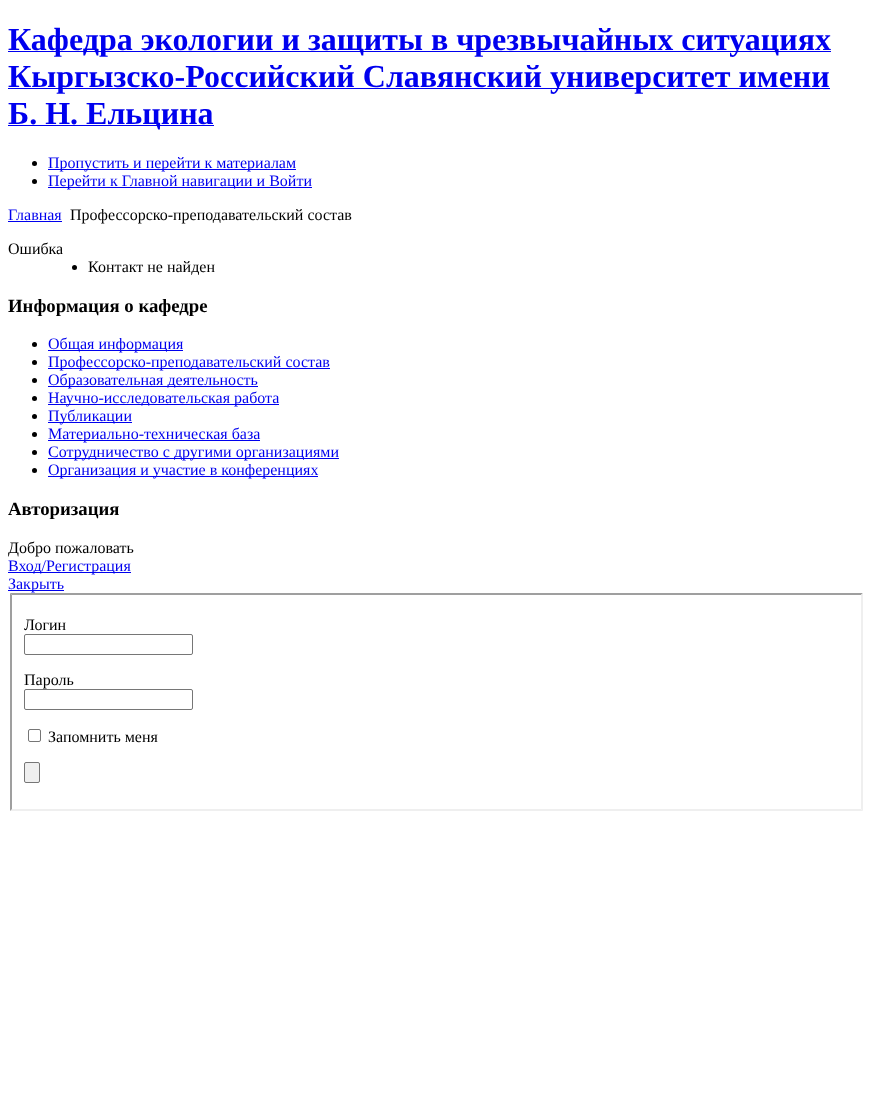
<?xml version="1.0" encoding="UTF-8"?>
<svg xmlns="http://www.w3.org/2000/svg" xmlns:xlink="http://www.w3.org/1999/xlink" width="873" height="1115">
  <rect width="100%" height="100%" fill="#ffffff" />
  <rect x="8" y="51" width="823" height="1" fill="#0000ee" />
  <rect x="8" y="88" width="822" height="1" fill="#0000ee" />
  <rect x="8" y="125" width="206" height="1" fill="#0000ee" />
  <circle cx="34.5" cy="163.5" r="2.5" fill="#000000" />
  <rect x="48" y="169" width="248" height="1" fill="#0000ee" />
  <circle cx="34.5" cy="181.5" r="2.5" fill="#000000" />
  <rect x="48" y="187" width="264" height="1" fill="#0000ee" />
  <rect x="8" y="221" width="54" height="1" fill="#0000ee" />
  <circle cx="74.5" cy="267.5" r="2.5" fill="#000000" />
  <circle cx="34.5" cy="344.5" r="2.5" fill="#000000" />
  <rect x="48" y="350" width="135" height="1" fill="#0000ee" />
  <circle cx="34.5" cy="362.5" r="2.5" fill="#000000" />
  <rect x="48" y="368" width="282" height="1" fill="#0000ee" />
  <circle cx="34.5" cy="380.5" r="2.5" fill="#000000" />
  <rect x="48" y="386" width="210" height="1" fill="#0000ee" />
  <circle cx="34.5" cy="398.5" r="2.5" fill="#000000" />
  <rect x="48" y="404" width="231" height="1" fill="#0000ee" />
  <circle cx="34.5" cy="416.5" r="2.5" fill="#000000" />
  <rect x="48" y="422" width="84" height="1" fill="#0000ee" />
  <circle cx="34.5" cy="434.5" r="2.5" fill="#000000" />
  <rect x="48" y="440" width="212" height="1" fill="#0000ee" />
  <circle cx="34.5" cy="452.5" r="2.5" fill="#000000" />
  <rect x="48" y="458" width="291" height="1" fill="#0000ee" />
  <circle cx="34.5" cy="470.5" r="2.5" fill="#000000" />
  <rect x="48" y="476" width="270" height="1" fill="#0000ee" />
  <rect x="8" y="572" width="123" height="1" fill="#0000ee" />
  <rect x="8" y="590" width="56" height="1" fill="#0000ee" />
  <path d="M 10 593 h 853 l -2 2 h -849 z" fill="#9f9f9f" />
  <path d="M 863 593 v 218 l -2 -2 v -214 z" fill="#efefef" />
  <path d="M 863 811 h -853 l 2 -2 h 849 z" fill="#efefef" />
  <path d="M 10 811 v -218 l 2 2 v 214 z" fill="#9f9f9f" />
  <rect x="24.5" y="634.5" width="168" height="20" rx="1.5" fill="none" stroke="#767676" />
  <rect x="24.5" y="689.5" width="168" height="20" rx="1.5" fill="none" stroke="#767676" />
  <rect x="28.5" y="729.5" width="12" height="12" rx="1.5" fill="none" stroke="#767676" />
  <rect x="24.5" y="762.5" width="15" height="20" rx="1.5" fill="#efefef" stroke="#767676" />
  <text x="8" y="50" style="font-family: Liberation Serif; font-size: 32px; font-weight: bold; fill: #0000ee">Кафедра экологии и защиты в чрезвычайных ситуациях</text>
  <text x="8" y="87" style="font-family: Liberation Serif; font-size: 32px; font-weight: bold; fill: #0000ee">Кыргызско-Российский Славянский университет имени</text>
  <text x="8" y="124" style="font-family: Liberation Serif; font-size: 32px; font-weight: bold; fill: #0000ee">Б. Н. Ельцина</text>
  <text x="48" y="168" style="font-family: Liberation Serif; font-size: 16px; fill: #0000ee">Пропустить и перейти к материалам</text>
  <text x="48" y="186" style="font-family: Liberation Serif; font-size: 16px; fill: #0000ee">Перейти к Главной навигации и Войти</text>
  <text x="8" y="220" style="font-family: Liberation Serif; font-size: 16px; fill: #0000ee">Главная</text>
  <text x="70" y="220" style="font-family: Liberation Serif; font-size: 16px; fill: #000000">Профессорско-преподавательский состав</text>
  <text x="8" y="254" style="font-family: Liberation Serif; font-size: 16px; fill: #000000">Ошибка</text>
  <text x="88" y="272" style="font-family: Liberation Serif; font-size: 16px; fill: #000000">Контакт не найден</text>
  <text x="8" y="312" style="font-family: Liberation Serif; font-size: 18.75px; font-weight: bold; fill: #000000">Информация о кафедре</text>
  <text x="48" y="349" style="font-family: Liberation Serif; font-size: 16px; fill: #0000ee">Общая информация</text>
  <text x="48" y="367" style="font-family: Liberation Serif; font-size: 16px; fill: #0000ee">Профессорско-преподавательский состав</text>
  <text x="48" y="385" style="font-family: Liberation Serif; font-size: 16px; fill: #0000ee">Образовательная деятельность</text>
  <text x="48" y="403" style="font-family: Liberation Serif; font-size: 16px; fill: #0000ee">Научно-исследовательская работа</text>
  <text x="48" y="421" style="font-family: Liberation Serif; font-size: 16px; fill: #0000ee">Публикации</text>
  <text x="48" y="439" style="font-family: Liberation Serif; font-size: 16px; fill: #0000ee">Материально-техническая база</text>
  <text x="48" y="457" style="font-family: Liberation Serif; font-size: 16px; fill: #0000ee">Сотрудничество с другими организациями</text>
  <text x="48" y="475" style="font-family: Liberation Serif; font-size: 16px; fill: #0000ee">Организация и участие в конференциях</text>
  <text x="8" y="515" style="font-family: Liberation Serif; font-size: 18.75px; font-weight: bold; fill: #000000">Авторизация</text>
  <text x="8" y="553" style="font-family: Liberation Serif; font-size: 16px; fill: #000000">Добро пожаловать</text>
  <text x="8" y="571" style="font-family: Liberation Serif; font-size: 16px; fill: #0000ee">Вход/Регистрация</text>
  <text x="8" y="589" style="font-family: Liberation Serif; font-size: 16px; fill: #0000ee">Закрыть</text>
  <text x="24" y="630" style="font-family: Liberation Serif; font-size: 16px; fill: #000000">Логин</text>
  <text x="24" y="685" style="font-family: Liberation Serif; font-size: 16px; fill: #000000">Пароль</text>
  <text x="48" y="742" style="font-family: Liberation Serif; font-size: 16px; fill: #000000">Запомнить меня</text>
</svg>
